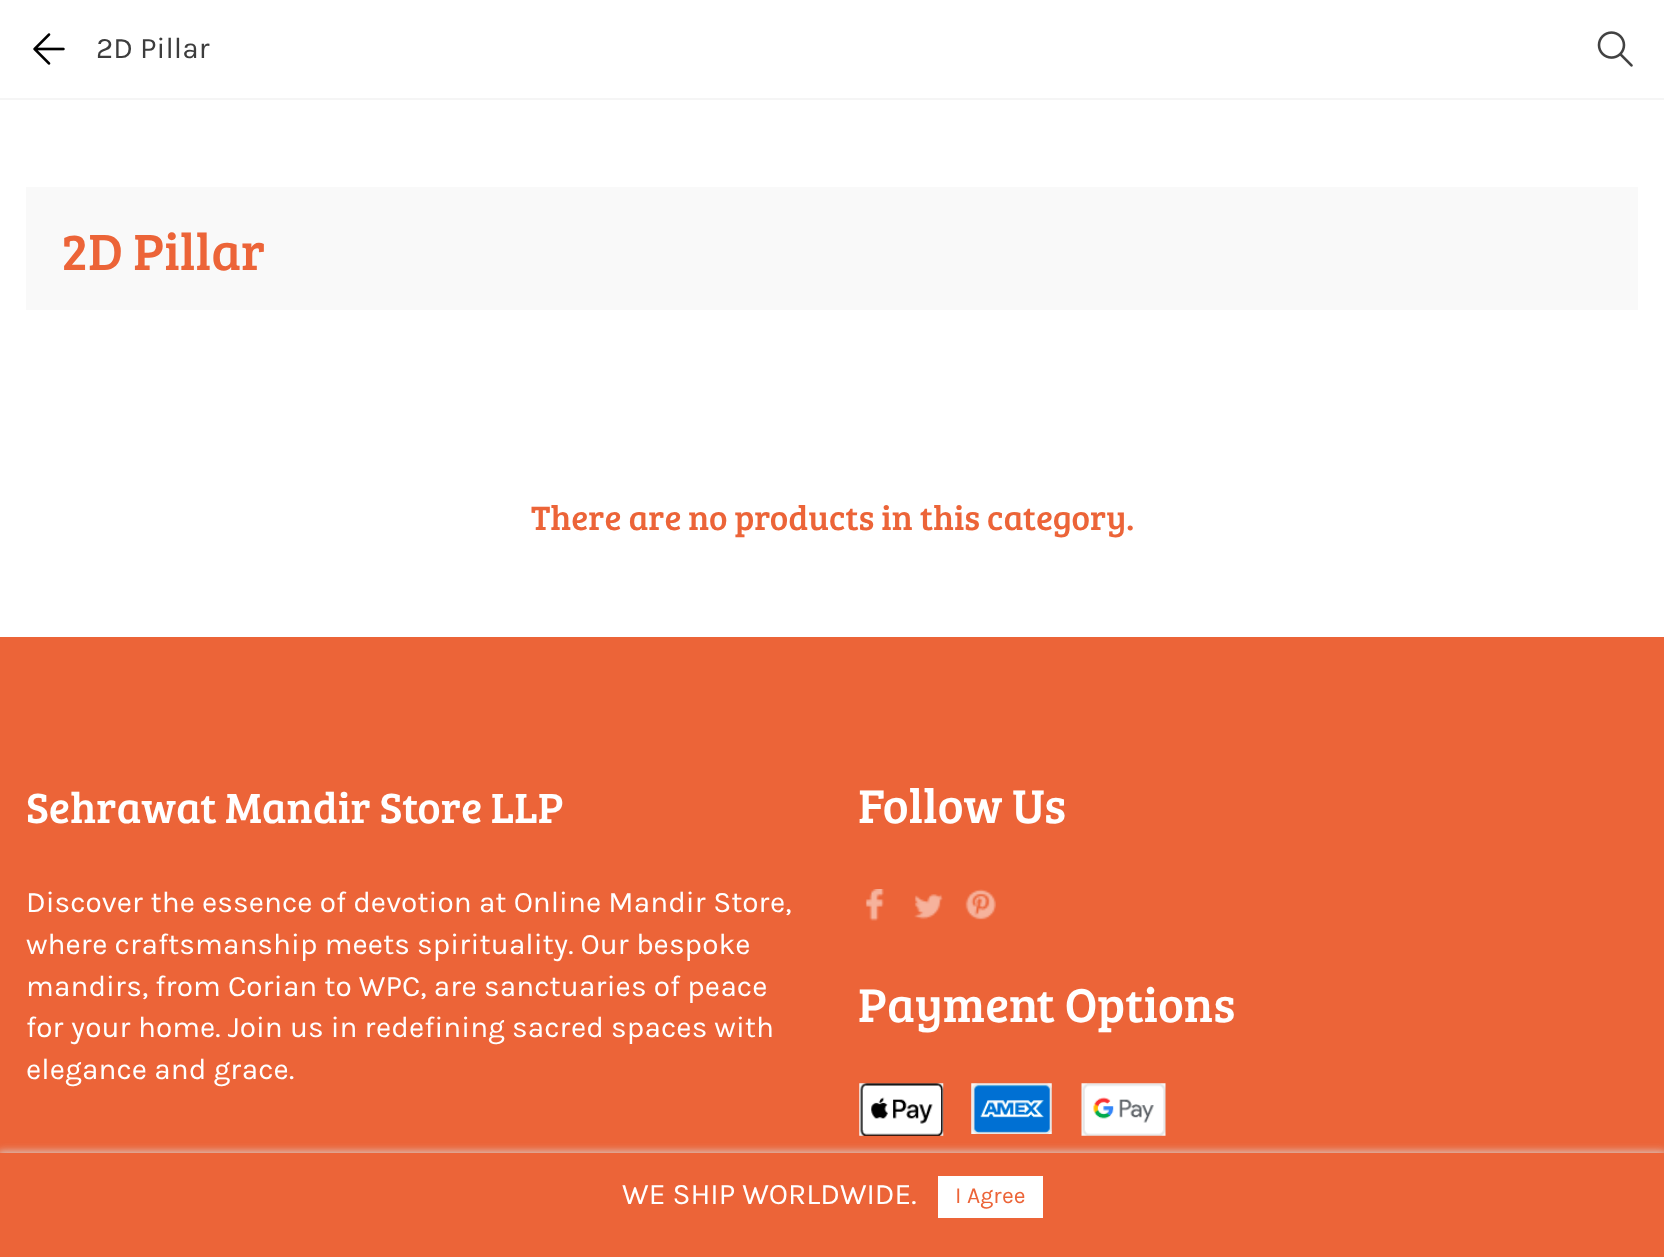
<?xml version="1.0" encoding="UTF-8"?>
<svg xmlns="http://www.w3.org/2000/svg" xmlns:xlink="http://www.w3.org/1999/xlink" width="1664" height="1257">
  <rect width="100%" height="100%" fill="#ffffff" />
  <rect y="98" width="1664" height="2" fill="#f5f5f5" />
  <image x="33" y="33" width="32" height="32" xlink:href="image1.png" />
  <image x="1597" y="31" width="36" height="36" xlink:href="image2.png" />
  <rect x="26" y="187" width="1612" height="123" fill="#f9f9f9" />
  <rect y="637" width="1664" height="516" fill="#ec6438" />
  <image x="865" y="889" width="19" height="32" xlink:href="image3.png" />
  <image x="914" y="894" width="29" height="26" xlink:href="image4.png" />
  <image x="965" y="889" width="31" height="31" xlink:href="image5.png" />
  <image x="859" y="1083" width="85" height="53" xlink:href="image6.png" />
  <image x="971" y="1083" width="81" height="51" xlink:href="image7.png" />
  <image x="1081" y="1083" width="85" height="53" xlink:href="image8.png" />
  <rect x="-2" y="1152" width="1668" height="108" fill="#d6d6d6" filter="blur(4.5px)" />
  <rect y="1153" width="1664" height="104" fill="#ec6438" />
  <rect x="938" y="1176" width="105" height="42" fill="#ffffff" />
  <text x="96" y="58" style="font-family: Karla; font-size: 29.75px; fill: #3d3d3d">2D Pillar</text>
  <text x="61" y="270" style="font-family: Bree Serif; font-size: 52.5px; fill: #ec6438">2D Pillar</text>
  <text x="531" y="530" style="font-family: Bree Serif; font-size: 35px; fill: #ec6438">There are no products in this category.</text>
  <text x="26" y="823" style="font-family: Bree Serif; font-size: 43.75px; fill: #ffffff">Sehrawat Mandir Store LLP</text>
  <text x="26" y="912" style="font-family: Karla; font-size: 29.75px; fill: #ffffff">Discover the essence of devotion at Online Mandir Store,</text>
  <text x="26" y="954" style="font-family: Karla; font-size: 29.75px; fill: #ffffff">where craftsmanship meets spirituality. Our bespoke</text>
  <text x="26" y="996" style="font-family: Karla; font-size: 29.75px; fill: #ffffff">mandirs, from Corian to WPC, are sanctuaries of peace</text>
  <text x="26" y="1037" style="font-family: Karla; font-size: 29.75px; fill: #ffffff">for your home. Join us in redefining sacred spaces with</text>
  <text x="26" y="1079" style="font-family: Karla; font-size: 29.75px; fill: #ffffff">elegance and grace.</text>
  <text x="858" y="823" style="font-family: Bree Serif; font-size: 49px; fill: #ffffff">Follow Us</text>
  <text x="858" y="1022" style="font-family: Bree Serif; font-size: 49px; fill: #ffffff">Payment Options</text>
  <text x="622" y="1204" style="font-family: Karla; font-size: 29.75px; fill: #ffffff">WE SHIP WORLDWIDE.</text>
  <text x="955" y="1203" style="font-family: Karla; font-size: 23px; fill: #ec6438">I Agree</text>
</svg>
